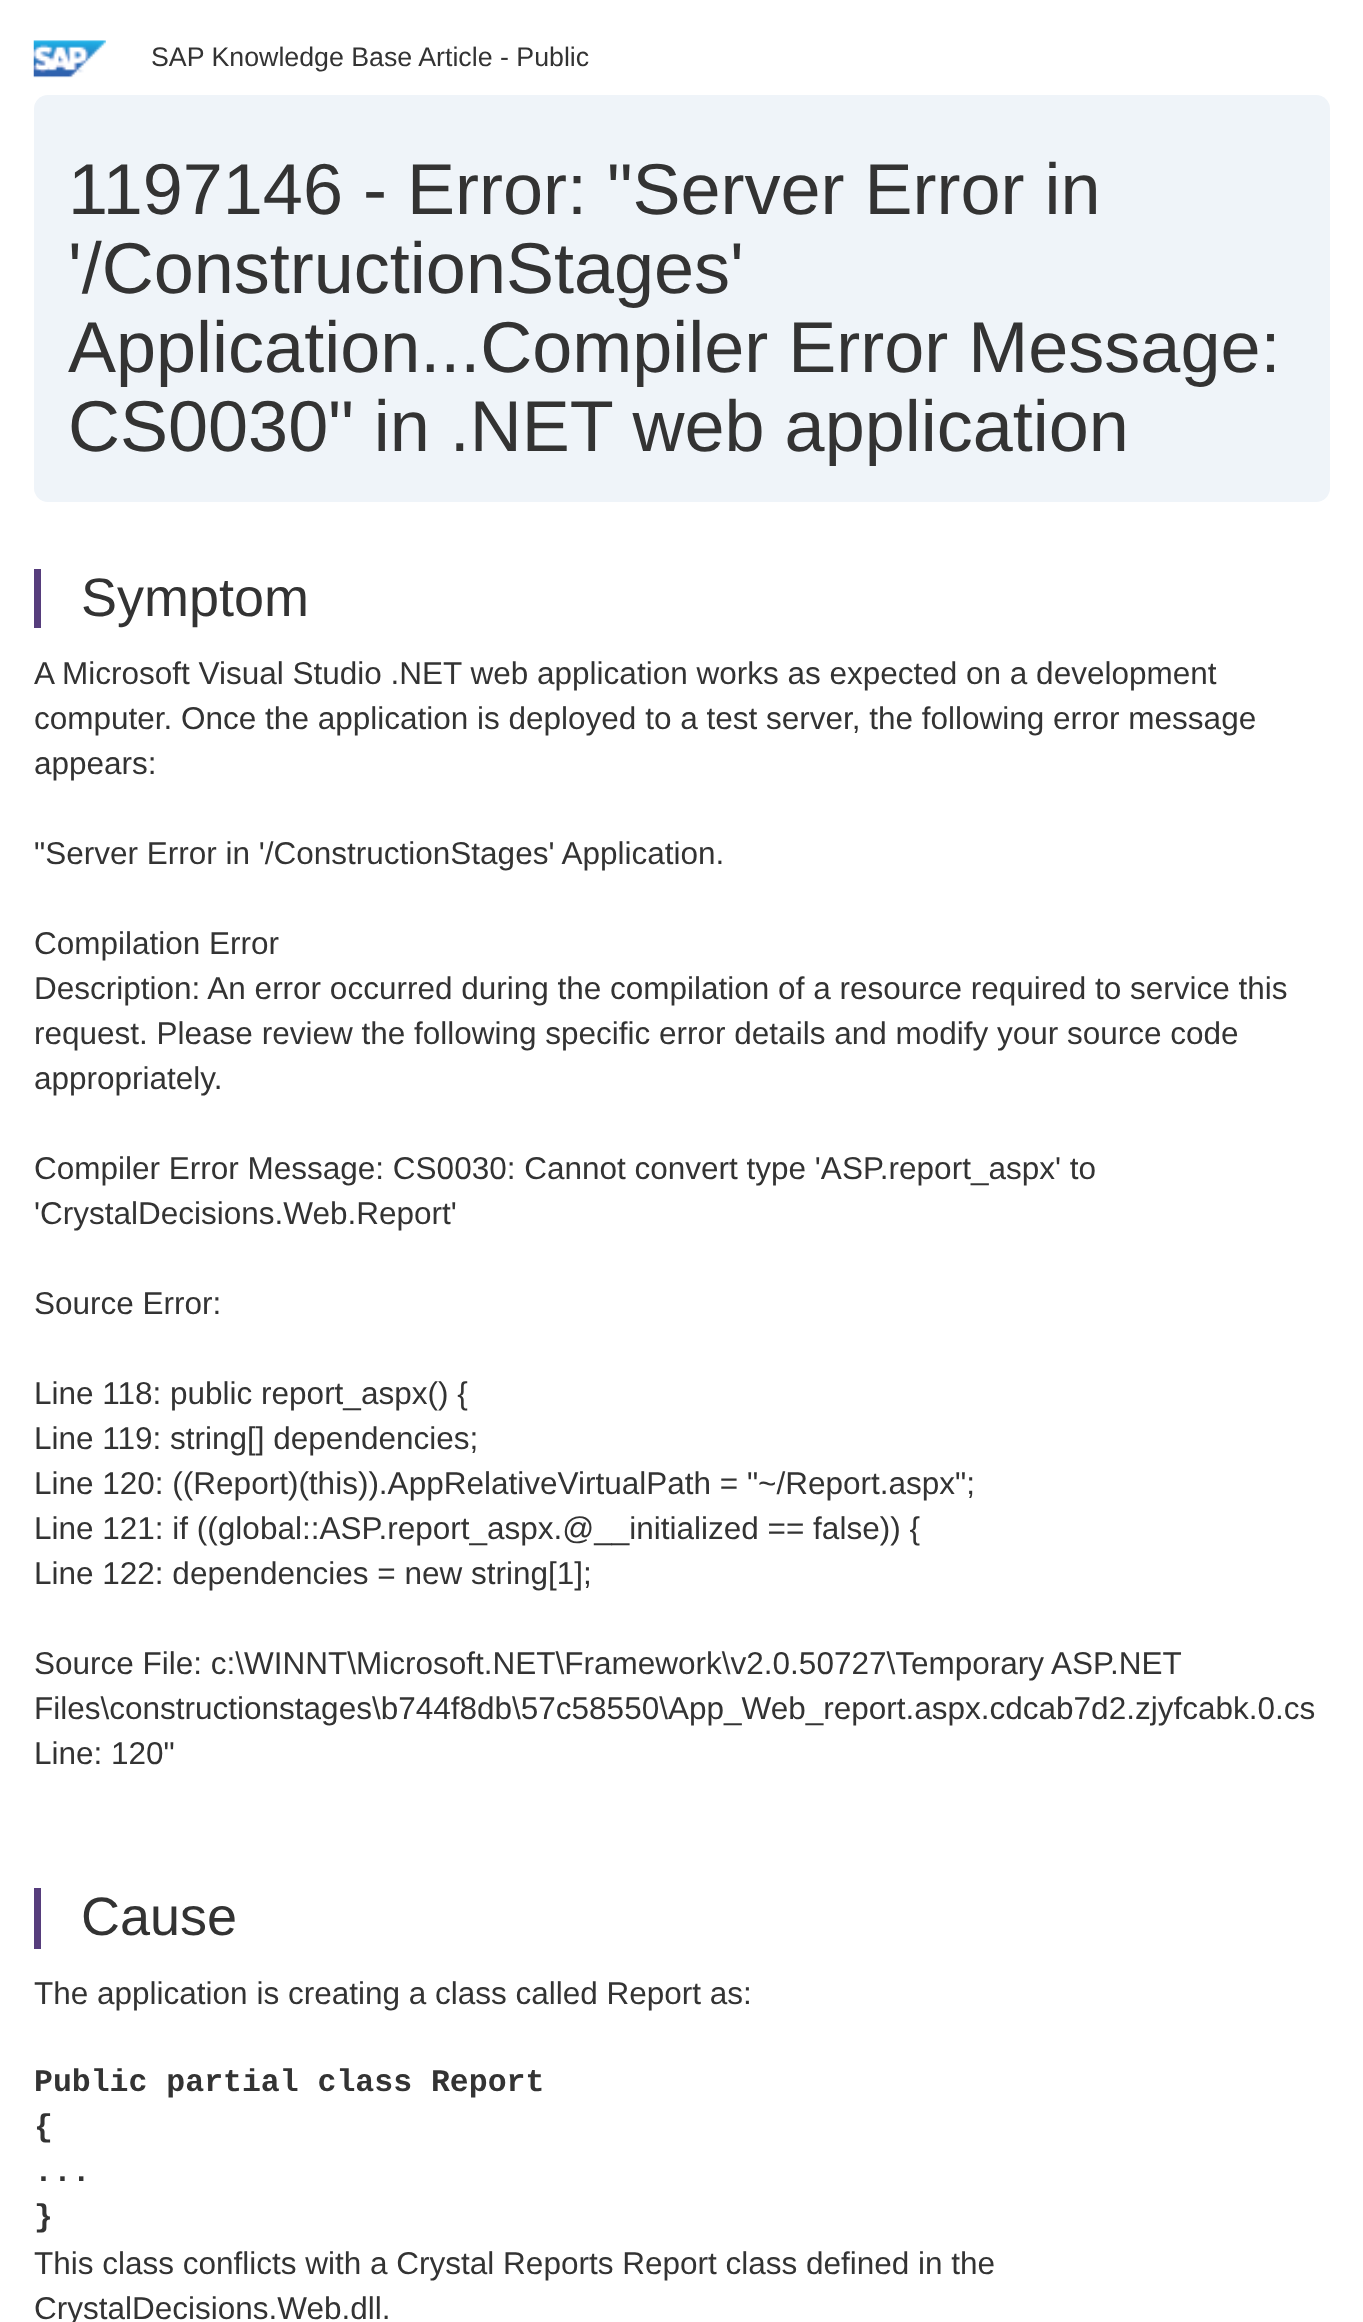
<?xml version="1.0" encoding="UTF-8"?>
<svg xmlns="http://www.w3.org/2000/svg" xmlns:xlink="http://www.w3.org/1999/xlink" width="1363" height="2322">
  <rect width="100%" height="100%" fill="#ffffff" />
  <image x="33" y="40" width="73" height="38" xlink:href="image1.png" />
  <rect x="34" y="95" width="1296" height="407" rx="14" fill="#eff4f9" />
  <rect x="34" y="569" width="7" height="59" fill="#563d7c" />
  <rect x="34" y="1888" width="7" height="61" fill="#563d7c" />
  <text x="151" y="66" style="font-family: Liberation Sans; font-size: 26.75px; fill: #333333">SAP Knowledge Base Article - Public</text>
  <text x="68" y="214" style="font-family: Liberation Sans; font-size: 72px; fill: #333333">1197146 - Error: "Server Error in</text>
  <text x="68" y="293" style="font-family: Liberation Sans; font-size: 72px; fill: #333333">'/ConstructionStages'</text>
  <text x="68" y="372" style="font-family: Liberation Sans; font-size: 72px; fill: #333333">Application...Compiler Error Message:</text>
  <text x="68" y="451" style="font-family: Liberation Sans; font-size: 72px; fill: #333333">CS0030" in .NET web application</text>
  <text x="81" y="616" style="font-family: Liberation Sans; font-size: 54px; fill: #333333">Symptom</text>
  <text x="34" y="684" style="font-family: Liberation Sans; font-size: 31.5px; fill: #333333">A Microsoft Visual Studio .NET web application works as expected on a development</text>
  <text x="34" y="729" style="font-family: Liberation Sans; font-size: 31.5px; fill: #333333">computer. Once the application is deployed to a test server, the following error message</text>
  <text x="34" y="774" style="font-family: Liberation Sans; font-size: 31.5px; fill: #333333">appears:</text>
  <text x="34" y="864" style="font-family: Liberation Sans; font-size: 31.5px; fill: #333333">"Server Error in '/ConstructionStages' Application.</text>
  <text x="34" y="954" style="font-family: Liberation Sans; font-size: 31.5px; fill: #333333">Compilation Error</text>
  <text x="34" y="999" style="font-family: Liberation Sans; font-size: 31.5px; fill: #333333">Description: An error occurred during the compilation of a resource required to service this</text>
  <text x="34" y="1044" style="font-family: Liberation Sans; font-size: 31.5px; fill: #333333">request. Please review the following specific error details and modify your source code</text>
  <text x="34" y="1089" style="font-family: Liberation Sans; font-size: 31.5px; fill: #333333">appropriately.</text>
  <text x="34" y="1179" style="font-family: Liberation Sans; font-size: 31.5px; fill: #333333">Compiler Error Message: CS0030: Cannot convert type 'ASP.report_aspx' to</text>
  <text x="34" y="1224" style="font-family: Liberation Sans; font-size: 31.5px; fill: #333333">'CrystalDecisions.Web.Report'</text>
  <text x="34" y="1314" style="font-family: Liberation Sans; font-size: 31.5px; fill: #333333">Source Error:</text>
  <text x="34" y="1404" style="font-family: Liberation Sans; font-size: 31.5px; fill: #333333">Line 118: public report_aspx() {</text>
  <text x="34" y="1449" style="font-family: Liberation Sans; font-size: 31.5px; fill: #333333">Line 119: string[] dependencies;</text>
  <text x="34" y="1494" style="font-family: Liberation Sans; font-size: 31.5px; fill: #333333">Line 120: ((Report)(this)).AppRelativeVirtualPath = "~/Report.aspx";</text>
  <text x="34" y="1539" style="font-family: Liberation Sans; font-size: 31.5px; fill: #333333">Line 121: if ((global::ASP.report_aspx.@__initialized == false)) {</text>
  <text x="34" y="1584" style="font-family: Liberation Sans; font-size: 31.5px; fill: #333333">Line 122: dependencies = new string[1];</text>
  <text x="34" y="1674" style="font-family: Liberation Sans; font-size: 31.5px; fill: #333333">Source File: c:\WINNT\Microsoft.NET\Framework\v2.0.50727\Temporary ASP.NET</text>
  <text x="34" y="1719" style="font-family: Liberation Sans; font-size: 31.5px; fill: #333333">Files\constructionstages\b744f8db\57c58550\App_Web_report.aspx.cdcab7d2.zjyfcabk.0.cs</text>
  <text x="34" y="1764" style="font-family: Liberation Sans; font-size: 31.5px; fill: #333333">Line: 120"</text>
  <text x="81" y="1935" style="font-family: Liberation Sans; font-size: 54px; fill: #333333">Cause</text>
  <text x="34" y="2004" style="font-family: Liberation Sans; font-size: 31.5px; fill: #333333">The application is creating a class called Report as:</text>
  <text x="34" y="2091" style="font-family: Liberation Mono; font-size: 31.5px; font-weight: bold; fill: #333333">Public partial class Report</text>
  <text x="34" y="2136" style="font-family: Liberation Mono; font-size: 31.5px; font-weight: bold; fill: #333333">{</text>
  <text x="34" y="2181" style="font-family: Liberation Mono; font-size: 31.5px; font-weight: bold; fill: #333333">...</text>
  <text x="34" y="2226" style="font-family: Liberation Mono; font-size: 31.5px; font-weight: bold; fill: #333333">}</text>
  <text x="34" y="2274" style="font-family: Liberation Sans; font-size: 31.5px; fill: #333333">This class conflicts with a Crystal Reports Report class defined in the</text>
  <text x="34" y="2319" style="font-family: Liberation Sans; font-size: 31.5px; fill: #333333">CrystalDecisions.Web.dll.</text>
</svg>
